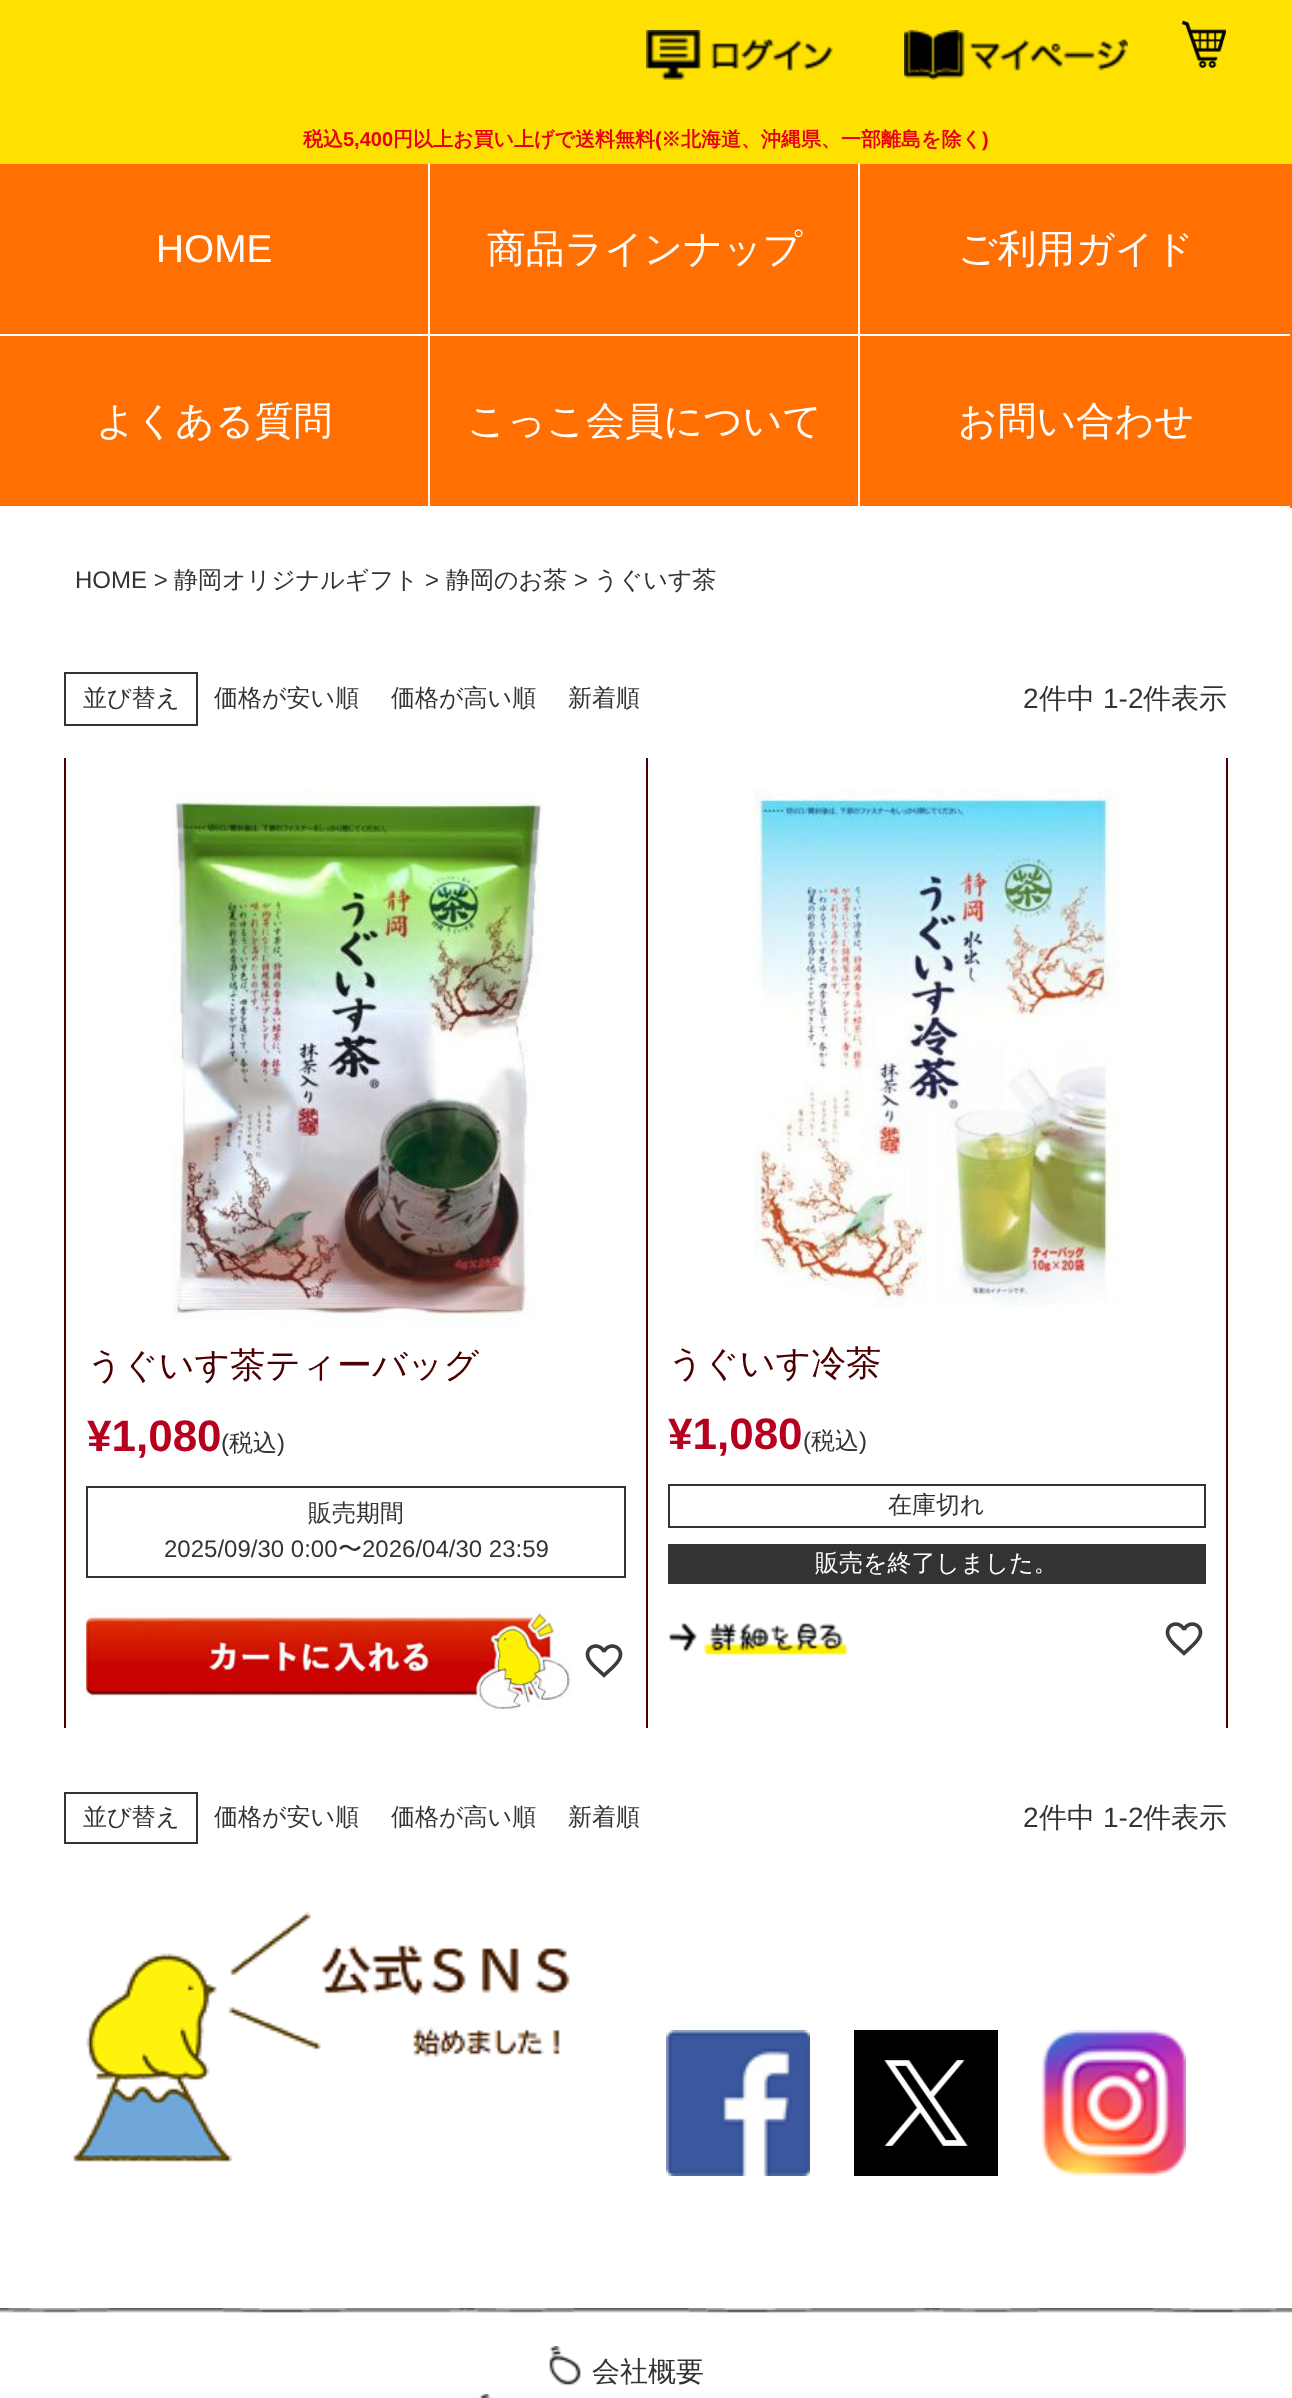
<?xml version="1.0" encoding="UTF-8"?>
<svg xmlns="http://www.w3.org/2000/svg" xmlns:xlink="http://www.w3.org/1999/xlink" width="1292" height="2398">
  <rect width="100%" height="100%" fill="#ffffff" />
  <rect width="1292" height="164" fill="#fee100" />
  <image x="646" y="30" width="187" height="50" xlink:href="image1.png" />
  <image x="904" y="30" width="224" height="50" xlink:href="image2.png" />
  <image x="1182" y="20" width="44" height="48" xlink:href="image3.png" />
  <rect y="164" width="1292" height="344" fill="#ff6f02" />
  <rect x="428" y="164" width="2" height="344" fill="#ffffff" />
  <rect y="334" width="430" height="2" fill="#ffffff" />
  <rect x="858" y="164" width="2" height="344" fill="#ffffff" />
  <rect x="430" y="334" width="860" height="2" fill="#ffffff" />
  <rect y="506" width="1290" height="2" fill="#ffffff" />
  <rect x="65" y="673" width="132" height="52" fill="none" stroke="#333333" stroke-width="2" />
  <rect x="64" y="758" width="2" height="970" fill="#4a0000" />
  <image x="172" y="790" width="371" height="540" xlink:href="image4.png" />
  <rect x="87" y="1487" width="538" height="90" fill="none" stroke="#333333" stroke-width="2" />
  <image x="86" y="1610" width="486" height="102" xlink:href="image5.png" />
  <image x="585" y="1644" width="38" height="34" xlink:href="image6.png" />
  <rect x="1226" y="758" width="2" height="970" fill="#4a0000" />
  <rect x="646" y="758" width="2" height="970" fill="#4a0000" />
  <image x="753" y="790" width="367" height="517" xlink:href="image7.png" />
  <rect x="669" y="1485" width="536" height="42" fill="none" stroke="#333333" stroke-width="2" />
  <rect x="668" y="1544" width="538" height="40" fill="#333333" />
  <image x="668" y="1622" width="180" height="33" xlink:href="image8.png" />
  <image x="1165" y="1622" width="38" height="34" xlink:href="image6.png" />
  <rect x="65" y="1793" width="132" height="50" fill="none" stroke="#333333" stroke-width="2" />
  <image x="73" y="1912" width="497" height="250" xlink:href="image9.png" />
  <image x="666" y="2030" width="144" height="146" xlink:href="image10.png" />
  <image x="854" y="2030" width="144" height="146" xlink:href="image11.png" />
  <image x="1042" y="2030" width="144" height="146" xlink:href="image12.png" />
  <image x="0" y="2308" width="1292" height="5" xlink:href="image13.png" />
  <image x="549" y="2346" width="32" height="40" xlink:href="image14.png" />
  <image x="479" y="2394" width="12" height="4" xlink:href="image15.png" />
  <text x="303" y="146" style="font-family: WenQuanYi Zen Hei; font-size: 20px; font-weight: bold; fill: #e60012">税込</text>
  <text x="343" y="146" style="font-family: Liberation Sans; font-size: 20px; font-weight: bold; fill: #e60012">5,400</text>
  <text x="393" y="146" style="font-family: WenQuanYi Zen Hei; font-size: 20px; font-weight: bold; fill: #e60012">円以上お買い上げで送料無料</text>
  <text x="655" y="146" style="font-family: Liberation Sans; font-size: 20px; font-weight: bold; fill: #e60012">(</text>
  <text x="661" y="146" style="font-family: WenQuanYi Zen Hei; font-size: 20px; font-weight: bold; fill: #e60012">※北海道、沖縄県、一部離島を除く</text>
  <text x="982" y="146" style="font-family: Liberation Sans; font-size: 20px; font-weight: bold; fill: #e60012">)</text>
  <text x="156" y="262" style="font-family: Liberation Sans; font-size: 38.75px; fill: #ffffff">HOME</text>
  <text x="487" y="262" style="font-family: WenQuanYi Zen Hei; font-size: 38.75px; font-weight: 500; fill: #ffffff">商品ラインナップ</text>
  <text x="958" y="262" style="font-family: WenQuanYi Zen Hei; font-size: 38.75px; font-weight: 500; fill: #ffffff">ご利用ガイド</text>
  <text x="96" y="434" style="font-family: WenQuanYi Zen Hei; font-size: 38.75px; font-weight: 500; fill: #ffffff">よくある質問</text>
  <text x="467" y="434" style="font-family: WenQuanYi Zen Hei; font-size: 38.75px; font-weight: 500; fill: #ffffff">こっこ会員について</text>
  <text x="958" y="434" style="font-family: WenQuanYi Zen Hei; font-size: 38.75px; font-weight: 500; fill: #ffffff">お問い合わせ</text>
  <text x="75" y="588" style="font-family: Liberation Sans; font-size: 24px; fill: #333333">HOME &gt;</text>
  <text x="174" y="588" style="font-family: WenQuanYi Zen Hei; font-size: 24px; font-weight: 500; fill: #333333">静岡オリジナルギフト</text>
  <text x="425" y="588" style="font-family: Liberation Sans; font-size: 24px; fill: #333333">&gt;</text>
  <text x="446" y="588" style="font-family: WenQuanYi Zen Hei; font-size: 24px; font-weight: 500; fill: #333333">静岡のお茶</text>
  <text x="574" y="588" style="font-family: Liberation Sans; font-size: 24px; fill: #333333">&gt;</text>
  <text x="594" y="588" style="font-family: WenQuanYi Zen Hei; font-size: 24px; font-weight: 500; fill: #333333">うぐいす茶</text>
  <text x="83" y="706" style="font-family: WenQuanYi Zen Hei; font-size: 24px; font-weight: 500; fill: #333333">並び替え</text>
  <text x="214" y="706" style="font-family: WenQuanYi Zen Hei; font-size: 24px; font-weight: 500; fill: #333333">価格が安い順</text>
  <text x="391" y="706" style="font-family: WenQuanYi Zen Hei; font-size: 24px; font-weight: 500; fill: #333333">価格が高い順</text>
  <text x="568" y="706" style="font-family: WenQuanYi Zen Hei; font-size: 24px; font-weight: 500; fill: #333333">新着順</text>
  <text x="1023" y="708" style="font-family: Liberation Sans; font-size: 28px; fill: #333333">2</text>
  <text x="1039" y="708" style="font-family: WenQuanYi Zen Hei; font-size: 28px; font-weight: 500; fill: #333333">件中</text>
  <text x="1103" y="708" style="font-family: Liberation Sans; font-size: 28px; fill: #333333">1-2</text>
  <text x="1143" y="708" style="font-family: WenQuanYi Zen Hei; font-size: 28px; font-weight: 500; fill: #333333">件表示</text>
  <text x="87" y="1377" style="font-family: WenQuanYi Zen Hei; font-size: 35px; font-weight: 500; fill: #4a0000">うぐいす茶ティーバッグ</text>
  <text x="87" y="1451" style="font-family: Liberation Sans; font-size: 44px; font-weight: bold; fill: #b5001f">¥1,080</text>
  <text x="221" y="1451" style="font-family: Liberation Sans; font-size: 24px; fill: #333333">(</text>
  <text x="229" y="1451" style="font-family: WenQuanYi Zen Hei; font-size: 24px; font-weight: 500; fill: #333333">税込</text>
  <text x="277" y="1451" style="font-family: Liberation Sans; font-size: 24px; fill: #333333">)</text>
  <text x="308" y="1521" style="font-family: WenQuanYi Zen Hei; font-size: 24px; font-weight: 500; fill: #333333">販売期間</text>
  <text x="164" y="1557" style="font-family: Liberation Sans; font-size: 24px; fill: #333333">2025/09/30 0:00</text>
  <text x="338" y="1557" style="font-family: WenQuanYi Zen Hei; font-size: 24px; font-weight: 500; fill: #333333">〜</text>
  <text x="362" y="1557" style="font-family: Liberation Sans; font-size: 24px; fill: #333333">2026/04/30 23:59</text>
  <text x="668" y="1375" style="font-family: WenQuanYi Zen Hei; font-size: 35px; font-weight: 500; fill: #4a0000">うぐいす冷茶</text>
  <text x="668" y="1449" style="font-family: Liberation Sans; font-size: 44px; font-weight: bold; fill: #b5001f">¥1,080</text>
  <text x="803" y="1449" style="font-family: Liberation Sans; font-size: 24px; fill: #333333">(</text>
  <text x="811" y="1449" style="font-family: WenQuanYi Zen Hei; font-size: 24px; font-weight: 500; fill: #333333">税込</text>
  <text x="859" y="1449" style="font-family: Liberation Sans; font-size: 24px; fill: #333333">)</text>
  <text x="888" y="1513" style="font-family: WenQuanYi Zen Hei; font-size: 24px; font-weight: 500; fill: #333333">在庫切れ</text>
  <text x="815" y="1571" style="font-family: WenQuanYi Zen Hei; font-size: 24px; font-weight: 500; fill: #ffffff">販売を終了しました。</text>
  <text x="83" y="1825" style="font-family: WenQuanYi Zen Hei; font-size: 24px; font-weight: 500; fill: #333333">並び替え</text>
  <text x="214" y="1825" style="font-family: WenQuanYi Zen Hei; font-size: 24px; font-weight: 500; fill: #333333">価格が安い順</text>
  <text x="391" y="1825" style="font-family: WenQuanYi Zen Hei; font-size: 24px; font-weight: 500; fill: #333333">価格が高い順</text>
  <text x="568" y="1825" style="font-family: WenQuanYi Zen Hei; font-size: 24px; font-weight: 500; fill: #333333">新着順</text>
  <text x="1023" y="1827" style="font-family: Liberation Sans; font-size: 28px; fill: #333333">2</text>
  <text x="1039" y="1827" style="font-family: WenQuanYi Zen Hei; font-size: 28px; font-weight: 500; fill: #333333">件中</text>
  <text x="1103" y="1827" style="font-family: Liberation Sans; font-size: 28px; fill: #333333">1-2</text>
  <text x="1143" y="1827" style="font-family: WenQuanYi Zen Hei; font-size: 28px; font-weight: 500; fill: #333333">件表示</text>
  <text x="592" y="2381" style="font-family: WenQuanYi Zen Hei; font-size: 28px; font-weight: 500; fill: #333333">会社概要</text>
</svg>
